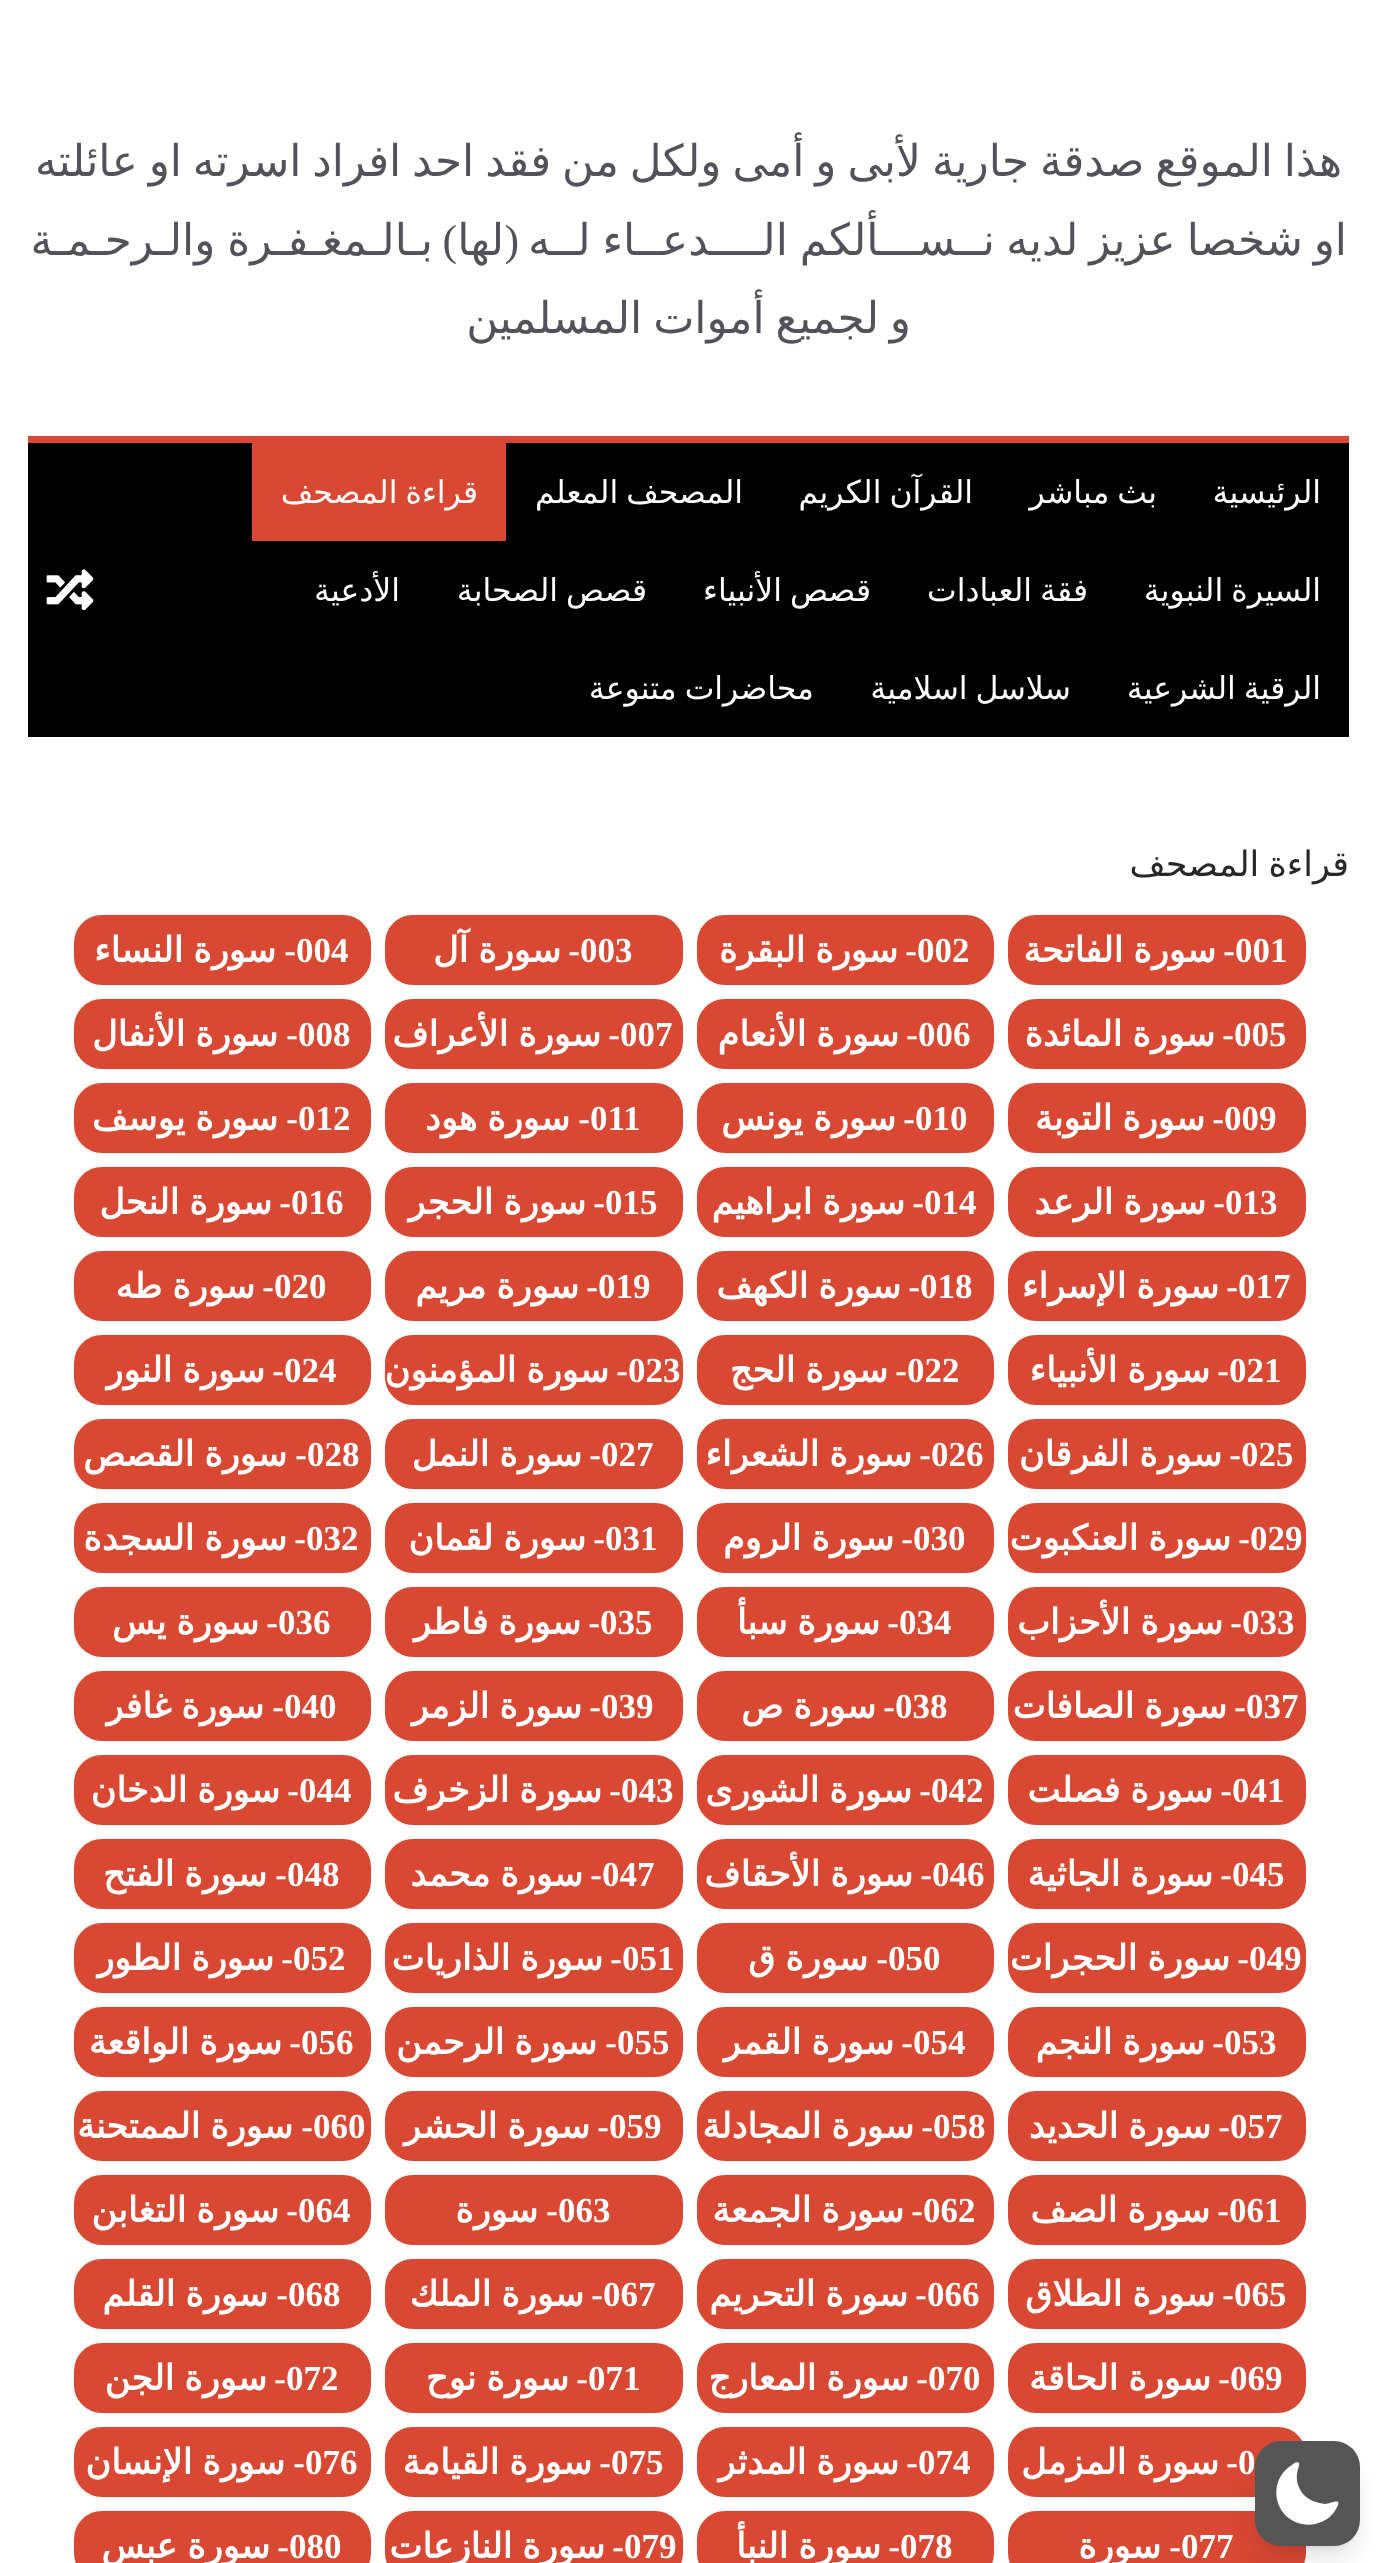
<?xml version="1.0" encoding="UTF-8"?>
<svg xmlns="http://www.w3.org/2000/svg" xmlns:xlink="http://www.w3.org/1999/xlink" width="1376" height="2563">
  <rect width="100%" height="100%" fill="#ffffff" />
  <rect x="28" y="443" width="1321" height="294" fill="#000000" />
  <rect x="28" y="436" width="1321" height="7" fill="#d84833" />
  <rect x="252" y="443" width="254" height="98" fill="#d84833" />
  <image x="46" y="569" width="48" height="42" xlink:href="image1.png" />
  <rect x="1004.5" y="911.5" width="305" height="77" rx="31.5" fill="#d84833" stroke="#ffffff" stroke-width="7" />
  <rect x="693.5" y="911.5" width="304" height="77" rx="31.5" fill="#d84833" stroke="#ffffff" stroke-width="7" />
  <rect x="381.5" y="911.5" width="305" height="77" rx="31.5" fill="#d84833" stroke="#ffffff" stroke-width="7" />
  <rect x="70.5" y="911.5" width="304" height="77" rx="31.5" fill="#d84833" stroke="#ffffff" stroke-width="7" />
  <rect x="1004.5" y="995.5" width="305" height="77" rx="31.5" fill="#d84833" stroke="#ffffff" stroke-width="7" />
  <rect x="693.5" y="995.5" width="304" height="77" rx="31.5" fill="#d84833" stroke="#ffffff" stroke-width="7" />
  <rect x="381.5" y="995.5" width="305" height="77" rx="31.5" fill="#d84833" stroke="#ffffff" stroke-width="7" />
  <rect x="70.5" y="995.5" width="304" height="77" rx="31.5" fill="#d84833" stroke="#ffffff" stroke-width="7" />
  <rect x="1004.5" y="1079.5" width="305" height="77" rx="31.5" fill="#d84833" stroke="#ffffff" stroke-width="7" />
  <rect x="693.5" y="1079.5" width="304" height="77" rx="31.5" fill="#d84833" stroke="#ffffff" stroke-width="7" />
  <rect x="381.5" y="1079.5" width="305" height="77" rx="31.5" fill="#d84833" stroke="#ffffff" stroke-width="7" />
  <rect x="70.5" y="1079.5" width="304" height="77" rx="31.5" fill="#d84833" stroke="#ffffff" stroke-width="7" />
  <rect x="1004.5" y="1163.5" width="305" height="77" rx="31.5" fill="#d84833" stroke="#ffffff" stroke-width="7" />
  <rect x="693.5" y="1163.5" width="304" height="77" rx="31.5" fill="#d84833" stroke="#ffffff" stroke-width="7" />
  <rect x="381.5" y="1163.5" width="305" height="77" rx="31.5" fill="#d84833" stroke="#ffffff" stroke-width="7" />
  <rect x="70.5" y="1163.5" width="304" height="77" rx="31.5" fill="#d84833" stroke="#ffffff" stroke-width="7" />
  <rect x="1004.5" y="1247.5" width="305" height="77" rx="31.5" fill="#d84833" stroke="#ffffff" stroke-width="7" />
  <rect x="693.5" y="1247.5" width="304" height="77" rx="31.5" fill="#d84833" stroke="#ffffff" stroke-width="7" />
  <rect x="381.5" y="1247.5" width="305" height="77" rx="31.5" fill="#d84833" stroke="#ffffff" stroke-width="7" />
  <rect x="70.5" y="1247.5" width="304" height="77" rx="31.5" fill="#d84833" stroke="#ffffff" stroke-width="7" />
  <rect x="1004.5" y="1331.5" width="305" height="77" rx="31.5" fill="#d84833" stroke="#ffffff" stroke-width="7" />
  <rect x="693.5" y="1331.5" width="304" height="77" rx="31.5" fill="#d84833" stroke="#ffffff" stroke-width="7" />
  <rect x="381.5" y="1331.5" width="305" height="77" rx="31.5" fill="#d84833" stroke="#ffffff" stroke-width="7" />
  <rect x="70.5" y="1331.5" width="304" height="77" rx="31.5" fill="#d84833" stroke="#ffffff" stroke-width="7" />
  <rect x="1004.5" y="1415.5" width="305" height="77" rx="31.5" fill="#d84833" stroke="#ffffff" stroke-width="7" />
  <rect x="693.5" y="1415.5" width="304" height="77" rx="31.5" fill="#d84833" stroke="#ffffff" stroke-width="7" />
  <rect x="381.5" y="1415.5" width="305" height="77" rx="31.5" fill="#d84833" stroke="#ffffff" stroke-width="7" />
  <rect x="70.5" y="1415.5" width="304" height="77" rx="31.5" fill="#d84833" stroke="#ffffff" stroke-width="7" />
  <rect x="1004.5" y="1499.5" width="305" height="77" rx="31.5" fill="#d84833" stroke="#ffffff" stroke-width="7" />
  <rect x="693.5" y="1499.5" width="304" height="77" rx="31.5" fill="#d84833" stroke="#ffffff" stroke-width="7" />
  <rect x="381.5" y="1499.5" width="305" height="77" rx="31.5" fill="#d84833" stroke="#ffffff" stroke-width="7" />
  <rect x="70.5" y="1499.5" width="304" height="77" rx="31.5" fill="#d84833" stroke="#ffffff" stroke-width="7" />
  <rect x="1004.5" y="1583.5" width="305" height="77" rx="31.5" fill="#d84833" stroke="#ffffff" stroke-width="7" />
  <rect x="693.5" y="1583.5" width="304" height="77" rx="31.5" fill="#d84833" stroke="#ffffff" stroke-width="7" />
  <rect x="381.5" y="1583.5" width="305" height="77" rx="31.5" fill="#d84833" stroke="#ffffff" stroke-width="7" />
  <rect x="70.5" y="1583.5" width="304" height="77" rx="31.5" fill="#d84833" stroke="#ffffff" stroke-width="7" />
  <rect x="1004.5" y="1667.5" width="305" height="77" rx="31.5" fill="#d84833" stroke="#ffffff" stroke-width="7" />
  <rect x="693.5" y="1667.5" width="304" height="77" rx="31.5" fill="#d84833" stroke="#ffffff" stroke-width="7" />
  <rect x="381.5" y="1667.5" width="305" height="77" rx="31.5" fill="#d84833" stroke="#ffffff" stroke-width="7" />
  <rect x="70.5" y="1667.5" width="304" height="77" rx="31.5" fill="#d84833" stroke="#ffffff" stroke-width="7" />
  <rect x="1004.5" y="1751.5" width="305" height="77" rx="31.5" fill="#d84833" stroke="#ffffff" stroke-width="7" />
  <rect x="693.5" y="1751.5" width="304" height="77" rx="31.5" fill="#d84833" stroke="#ffffff" stroke-width="7" />
  <rect x="381.5" y="1751.5" width="305" height="77" rx="31.5" fill="#d84833" stroke="#ffffff" stroke-width="7" />
  <rect x="70.5" y="1751.5" width="304" height="77" rx="31.5" fill="#d84833" stroke="#ffffff" stroke-width="7" />
  <rect x="1004.5" y="1835.5" width="305" height="77" rx="31.5" fill="#d84833" stroke="#ffffff" stroke-width="7" />
  <rect x="693.5" y="1835.5" width="304" height="77" rx="31.5" fill="#d84833" stroke="#ffffff" stroke-width="7" />
  <rect x="381.5" y="1835.5" width="305" height="77" rx="31.5" fill="#d84833" stroke="#ffffff" stroke-width="7" />
  <rect x="70.5" y="1835.5" width="304" height="77" rx="31.5" fill="#d84833" stroke="#ffffff" stroke-width="7" />
  <rect x="1004.5" y="1919.5" width="305" height="77" rx="31.5" fill="#d84833" stroke="#ffffff" stroke-width="7" />
  <rect x="693.5" y="1919.5" width="304" height="77" rx="31.5" fill="#d84833" stroke="#ffffff" stroke-width="7" />
  <rect x="381.5" y="1919.5" width="305" height="77" rx="31.5" fill="#d84833" stroke="#ffffff" stroke-width="7" />
  <rect x="70.5" y="1919.5" width="304" height="77" rx="31.5" fill="#d84833" stroke="#ffffff" stroke-width="7" />
  <rect x="1004.5" y="2003.5" width="305" height="77" rx="31.5" fill="#d84833" stroke="#ffffff" stroke-width="7" />
  <rect x="693.5" y="2003.5" width="304" height="77" rx="31.5" fill="#d84833" stroke="#ffffff" stroke-width="7" />
  <rect x="381.5" y="2003.5" width="305" height="77" rx="31.5" fill="#d84833" stroke="#ffffff" stroke-width="7" />
  <rect x="70.5" y="2003.5" width="304" height="77" rx="31.5" fill="#d84833" stroke="#ffffff" stroke-width="7" />
  <rect x="1004.5" y="2087.5" width="305" height="77" rx="31.5" fill="#d84833" stroke="#ffffff" stroke-width="7" />
  <rect x="693.5" y="2087.5" width="304" height="77" rx="31.5" fill="#d84833" stroke="#ffffff" stroke-width="7" />
  <rect x="381.5" y="2087.5" width="305" height="77" rx="31.5" fill="#d84833" stroke="#ffffff" stroke-width="7" />
  <rect x="70.5" y="2087.5" width="304" height="77" rx="31.5" fill="#d84833" stroke="#ffffff" stroke-width="7" />
  <rect x="1004.5" y="2171.5" width="305" height="77" rx="31.5" fill="#d84833" stroke="#ffffff" stroke-width="7" />
  <rect x="693.5" y="2171.5" width="304" height="77" rx="31.5" fill="#d84833" stroke="#ffffff" stroke-width="7" />
  <rect x="381.5" y="2171.5" width="305" height="77" rx="31.5" fill="#d84833" stroke="#ffffff" stroke-width="7" />
  <rect x="70.5" y="2171.5" width="304" height="77" rx="31.5" fill="#d84833" stroke="#ffffff" stroke-width="7" />
  <rect x="1004.5" y="2255.5" width="305" height="77" rx="31.5" fill="#d84833" stroke="#ffffff" stroke-width="7" />
  <rect x="693.5" y="2255.5" width="304" height="77" rx="31.5" fill="#d84833" stroke="#ffffff" stroke-width="7" />
  <rect x="381.5" y="2255.5" width="305" height="77" rx="31.5" fill="#d84833" stroke="#ffffff" stroke-width="7" />
  <rect x="70.5" y="2255.5" width="304" height="77" rx="31.5" fill="#d84833" stroke="#ffffff" stroke-width="7" />
  <rect x="1004.5" y="2339.5" width="305" height="77" rx="31.5" fill="#d84833" stroke="#ffffff" stroke-width="7" />
  <rect x="693.5" y="2339.5" width="304" height="77" rx="31.5" fill="#d84833" stroke="#ffffff" stroke-width="7" />
  <rect x="381.5" y="2339.5" width="305" height="77" rx="31.5" fill="#d84833" stroke="#ffffff" stroke-width="7" />
  <rect x="70.5" y="2339.5" width="304" height="77" rx="31.5" fill="#d84833" stroke="#ffffff" stroke-width="7" />
  <rect x="1004.5" y="2423.5" width="305" height="77" rx="31.5" fill="#d84833" stroke="#ffffff" stroke-width="7" />
  <rect x="693.5" y="2423.5" width="304" height="77" rx="31.5" fill="#d84833" stroke="#ffffff" stroke-width="7" />
  <rect x="381.5" y="2423.5" width="305" height="77" rx="31.5" fill="#d84833" stroke="#ffffff" stroke-width="7" />
  <rect x="70.5" y="2423.5" width="304" height="77" rx="31.5" fill="#d84833" stroke="#ffffff" stroke-width="7" />
  <rect x="1004.5" y="2507.5" width="305" height="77" rx="31.5" fill="#d84833" stroke="#ffffff" stroke-width="7" />
  <rect x="693.5" y="2507.5" width="304" height="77" rx="31.5" fill="#d84833" stroke="#ffffff" stroke-width="7" />
  <rect x="381.5" y="2507.5" width="305" height="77" rx="31.5" fill="#d84833" stroke="#ffffff" stroke-width="7" />
  <rect x="70.5" y="2507.5" width="304" height="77" rx="31.5" fill="#d84833" stroke="#ffffff" stroke-width="7" />
  <rect x="1262" y="2455" width="91" height="91" rx="19" fill="#000000" fill-opacity="0.1" filter="blur(5px)" />
  <rect x="1260" y="2464" width="95" height="95" rx="21" fill="#000000" fill-opacity="0.1" filter="blur(13px)" />
  <rect x="1255" y="2441" width="105" height="105" rx="26" fill="#555555" />
  <path d="M 1299 2463 c 1 2 -2 8 -2 11 c -1 8 2 16 8 22 c 6 5 12 7 20 8 c 5 0 19 -8 11 5 c -2 4 -6 8 -9 10 c -8 5 -17 7 -25 5 c -29 -6 -35 -44 -10 -59 c 1 -1 5 -4 7 -2 z" fill="#fefefe" fill-rule="evenodd" />
  <text x="1342" y="176" word-spacing="-3" style="font-family: DejaVu Sans; font-size: 43.75px; direction: rtl; fill: #52525b">هذا الموقع صدقة جارية</text>
  <text x="921" y="176" word-spacing="-3" style="font-family: DejaVu Sans; font-size: 43.75px; direction: rtl; fill: #52525b">لأبى و أمى ولكل من فقد احد افراد اسرته او عائلته</text>
  <text x="1347" y="255" word-spacing="-3" style="font-family: DejaVu Sans; font-size: 43.75px; direction: rtl; fill: #52525b">او شخصا عزيز لديه</text>
  <text x="995" y="255" word-spacing="-2" style="font-family: DejaVu Sans; font-size: 43.75px; direction: rtl; fill: #52525b">نــســـألكم الــــدعــاء لــه</text>
  <text x="519" y="255" style="font-family: Liberation Serif; font-size: 43.75px; direction: rtl; fill: #52525b">(</text>
  <text x="504" y="255" style="font-family: DejaVu Sans; font-size: 43.75px; direction: rtl; fill: #52525b">لها</text>
  <text x="457" y="255" style="font-family: Liberation Serif; font-size: 43.75px; direction: rtl; fill: #52525b">)</text>
  <text x="433" y="255" word-spacing="-2" style="font-family: DejaVu Sans; font-size: 43.75px; direction: rtl; fill: #52525b">بـالـمغـفـرة والـرحـمـة</text>
  <text x="911" y="333" word-spacing="-3" style="font-family: DejaVu Sans; font-size: 43.75px; direction: rtl; fill: #52525b">و لجميع أموات المسلمين</text>
  <text x="1321" y="503" style="font-family: DejaVu Sans; font-size: 31.5px; direction: rtl; fill: #ffffff">الرئيسية</text>
  <text x="1157" y="503" word-spacing="-2" style="font-family: DejaVu Sans; font-size: 31.5px; direction: rtl; fill: #ffffff">بث مباشر</text>
  <text x="973" y="503" word-spacing="-2" style="font-family: DejaVu Sans; font-size: 31.5px; direction: rtl; fill: #ffffff">القرآن الكريم</text>
  <text x="743" y="503" word-spacing="-2" style="font-family: DejaVu Sans; font-size: 31.5px; direction: rtl; fill: #ffffff">المصحف المعلم</text>
  <text x="478" y="503" word-spacing="-2" style="font-family: DejaVu Sans; font-size: 31.5px; direction: rtl; fill: #ffffff">قراءة المصحف</text>
  <text x="1321" y="601" word-spacing="-2" style="font-family: DejaVu Sans; font-size: 31.5px; direction: rtl; fill: #ffffff">السيرة النبوية</text>
  <text x="1088" y="601" word-spacing="-2" style="font-family: DejaVu Sans; font-size: 31.5px; direction: rtl; fill: #ffffff">فقة العبادات</text>
  <text x="871" y="601" word-spacing="-2" style="font-family: DejaVu Sans; font-size: 31.5px; direction: rtl; fill: #ffffff">قصص الأنبياء</text>
  <text x="647" y="601" word-spacing="-2" style="font-family: DejaVu Sans; font-size: 31.5px; direction: rtl; fill: #ffffff">قصص الصحابة</text>
  <text x="400" y="601" style="font-family: DejaVu Sans; font-size: 31.5px; direction: rtl; fill: #ffffff">الأدعية</text>
  <text x="1321" y="699" word-spacing="-2" style="font-family: DejaVu Sans; font-size: 31.5px; direction: rtl; fill: #ffffff">الرقية الشرعية</text>
  <text x="1071" y="699" word-spacing="-2" style="font-family: DejaVu Sans; font-size: 31.5px; direction: rtl; fill: #ffffff">سلاسل اسلامية</text>
  <text x="814" y="699" word-spacing="-2" style="font-family: DejaVu Sans; font-size: 31.5px; direction: rtl; fill: #ffffff">محاضرات متنوعة</text>
  <text x="1349" y="876" word-spacing="-2" style="font-family: DejaVu Sans; font-size: 35px; direction: rtl; fill: #27272a">قراءة المصحف</text>
  <text x="1235" y="962" style="font-family: Liberation Serif; font-size: 35px; font-weight: bold; fill: #ffffff">001</text>
  <text x="1235" y="962" style="font-family: Liberation Serif; font-size: 35px; font-weight: bold; direction: rtl; fill: #ffffff">-</text>
  <text x="1216" y="962" word-spacing="-1" style="font-family: DejaVu Sans; font-size: 35px; font-weight: bold; direction: rtl; fill: #ffffff">سورة الفاتحة</text>
  <text x="917" y="962" style="font-family: Liberation Serif; font-size: 35px; font-weight: bold; fill: #ffffff">002</text>
  <text x="917" y="962" style="font-family: Liberation Serif; font-size: 35px; font-weight: bold; direction: rtl; fill: #ffffff">-</text>
  <text x="898" y="962" word-spacing="-1" style="font-family: DejaVu Sans; font-size: 35px; font-weight: bold; direction: rtl; fill: #ffffff">سورة البقرة</text>
  <text x="580" y="962" style="font-family: Liberation Serif; font-size: 35px; font-weight: bold; fill: #ffffff">003</text>
  <text x="580" y="962" style="font-family: Liberation Serif; font-size: 35px; font-weight: bold; direction: rtl; fill: #ffffff">-</text>
  <text x="561" y="962" word-spacing="-1" style="font-family: DejaVu Sans; font-size: 35px; font-weight: bold; direction: rtl; fill: #ffffff">سورة آل</text>
  <text x="296" y="962" style="font-family: Liberation Serif; font-size: 35px; font-weight: bold; fill: #ffffff">004</text>
  <text x="296" y="962" style="font-family: Liberation Serif; font-size: 35px; font-weight: bold; direction: rtl; fill: #ffffff">-</text>
  <text x="276" y="962" word-spacing="-1" style="font-family: DejaVu Sans; font-size: 35px; font-weight: bold; direction: rtl; fill: #ffffff">سورة النساء</text>
  <text x="1234" y="1046" style="font-family: Liberation Serif; font-size: 35px; font-weight: bold; fill: #ffffff">005</text>
  <text x="1234" y="1046" style="font-family: Liberation Serif; font-size: 35px; font-weight: bold; direction: rtl; fill: #ffffff">-</text>
  <text x="1215" y="1046" word-spacing="-1" style="font-family: DejaVu Sans; font-size: 35px; font-weight: bold; direction: rtl; fill: #ffffff">سورة المائدة</text>
  <text x="918" y="1046" style="font-family: Liberation Serif; font-size: 35px; font-weight: bold; fill: #ffffff">006</text>
  <text x="918" y="1046" style="font-family: Liberation Serif; font-size: 35px; font-weight: bold; direction: rtl; fill: #ffffff">-</text>
  <text x="899" y="1046" word-spacing="-1" style="font-family: DejaVu Sans; font-size: 35px; font-weight: bold; direction: rtl; fill: #ffffff">سورة الأنعام</text>
  <text x="620" y="1046" style="font-family: Liberation Serif; font-size: 35px; font-weight: bold; fill: #ffffff">007</text>
  <text x="620" y="1046" style="font-family: Liberation Serif; font-size: 35px; font-weight: bold; direction: rtl; fill: #ffffff">-</text>
  <text x="601" y="1046" word-spacing="-1" style="font-family: DejaVu Sans; font-size: 35px; font-weight: bold; direction: rtl; fill: #ffffff">سورة الأعراف</text>
  <text x="298" y="1046" style="font-family: Liberation Serif; font-size: 35px; font-weight: bold; fill: #ffffff">008</text>
  <text x="298" y="1046" style="font-family: Liberation Serif; font-size: 35px; font-weight: bold; direction: rtl; fill: #ffffff">-</text>
  <text x="278" y="1046" word-spacing="-1" style="font-family: DejaVu Sans; font-size: 35px; font-weight: bold; direction: rtl; fill: #ffffff">سورة الأنفال</text>
  <text x="1224" y="1130" style="font-family: Liberation Serif; font-size: 35px; font-weight: bold; fill: #ffffff">009</text>
  <text x="1224" y="1130" style="font-family: Liberation Serif; font-size: 35px; font-weight: bold; direction: rtl; fill: #ffffff">-</text>
  <text x="1205" y="1130" word-spacing="-1" style="font-family: DejaVu Sans; font-size: 35px; font-weight: bold; direction: rtl; fill: #ffffff">سورة التوبة</text>
  <text x="915" y="1130" style="font-family: Liberation Serif; font-size: 35px; font-weight: bold; fill: #ffffff">010</text>
  <text x="915" y="1130" style="font-family: Liberation Serif; font-size: 35px; font-weight: bold; direction: rtl; fill: #ffffff">-</text>
  <text x="896" y="1130" word-spacing="-1" style="font-family: DejaVu Sans; font-size: 35px; font-weight: bold; direction: rtl; fill: #ffffff">سورة يونس</text>
  <text x="590" y="1130" style="font-family: Liberation Serif; font-size: 35px; font-weight: bold; fill: #ffffff">011</text>
  <text x="590" y="1130" style="font-family: Liberation Serif; font-size: 35px; font-weight: bold; direction: rtl; fill: #ffffff">-</text>
  <text x="570" y="1130" word-spacing="-1" style="font-family: DejaVu Sans; font-size: 35px; font-weight: bold; direction: rtl; fill: #ffffff">سورة هود</text>
  <text x="298" y="1130" style="font-family: Liberation Serif; font-size: 35px; font-weight: bold; fill: #ffffff">012</text>
  <text x="298" y="1130" style="font-family: Liberation Serif; font-size: 35px; font-weight: bold; direction: rtl; fill: #ffffff">-</text>
  <text x="278" y="1130" word-spacing="-1" style="font-family: DejaVu Sans; font-size: 35px; font-weight: bold; direction: rtl; fill: #ffffff">سورة يوسف</text>
  <text x="1225" y="1214" style="font-family: Liberation Serif; font-size: 35px; font-weight: bold; fill: #ffffff">013</text>
  <text x="1225" y="1214" style="font-family: Liberation Serif; font-size: 35px; font-weight: bold; direction: rtl; fill: #ffffff">-</text>
  <text x="1206" y="1214" word-spacing="-1" style="font-family: DejaVu Sans; font-size: 35px; font-weight: bold; direction: rtl; fill: #ffffff">سورة الرعد</text>
  <text x="924" y="1214" style="font-family: Liberation Serif; font-size: 35px; font-weight: bold; fill: #ffffff">014</text>
  <text x="924" y="1214" style="font-family: Liberation Serif; font-size: 35px; font-weight: bold; direction: rtl; fill: #ffffff">-</text>
  <text x="905" y="1214" word-spacing="-1" style="font-family: DejaVu Sans; font-size: 35px; font-weight: bold; direction: rtl; fill: #ffffff">سورة ابراهيم</text>
  <text x="605" y="1214" style="font-family: Liberation Serif; font-size: 35px; font-weight: bold; fill: #ffffff">015</text>
  <text x="605" y="1214" style="font-family: Liberation Serif; font-size: 35px; font-weight: bold; direction: rtl; fill: #ffffff">-</text>
  <text x="586" y="1214" word-spacing="-1" style="font-family: DejaVu Sans; font-size: 35px; font-weight: bold; direction: rtl; fill: #ffffff">سورة الحجر</text>
  <text x="291" y="1214" style="font-family: Liberation Serif; font-size: 35px; font-weight: bold; fill: #ffffff">016</text>
  <text x="291" y="1214" style="font-family: Liberation Serif; font-size: 35px; font-weight: bold; direction: rtl; fill: #ffffff">-</text>
  <text x="272" y="1214" word-spacing="-1" style="font-family: DejaVu Sans; font-size: 35px; font-weight: bold; direction: rtl; fill: #ffffff">سورة النحل</text>
  <text x="1238" y="1298" style="font-family: Liberation Serif; font-size: 35px; font-weight: bold; fill: #ffffff">017</text>
  <text x="1238" y="1298" style="font-family: Liberation Serif; font-size: 35px; font-weight: bold; direction: rtl; fill: #ffffff">-</text>
  <text x="1219" y="1298" word-spacing="-1" style="font-family: DejaVu Sans; font-size: 35px; font-weight: bold; direction: rtl; fill: #ffffff">سورة الإسراء</text>
  <text x="920" y="1298" style="font-family: Liberation Serif; font-size: 35px; font-weight: bold; fill: #ffffff">018</text>
  <text x="920" y="1298" style="font-family: Liberation Serif; font-size: 35px; font-weight: bold; direction: rtl; fill: #ffffff">-</text>
  <text x="901" y="1298" word-spacing="-1" style="font-family: DejaVu Sans; font-size: 35px; font-weight: bold; direction: rtl; fill: #ffffff">سورة الكهف</text>
  <text x="598" y="1298" style="font-family: Liberation Serif; font-size: 35px; font-weight: bold; fill: #ffffff">019</text>
  <text x="598" y="1298" style="font-family: Liberation Serif; font-size: 35px; font-weight: bold; direction: rtl; fill: #ffffff">-</text>
  <text x="579" y="1298" word-spacing="-1" style="font-family: DejaVu Sans; font-size: 35px; font-weight: bold; direction: rtl; fill: #ffffff">سورة مريم</text>
  <text x="274" y="1298" style="font-family: Liberation Serif; font-size: 35px; font-weight: bold; fill: #ffffff">020</text>
  <text x="274" y="1298" style="font-family: Liberation Serif; font-size: 35px; font-weight: bold; direction: rtl; fill: #ffffff">-</text>
  <text x="255" y="1298" word-spacing="-1" style="font-family: DejaVu Sans; font-size: 35px; font-weight: bold; direction: rtl; fill: #ffffff">سورة طه</text>
  <text x="1229" y="1382" style="font-family: Liberation Serif; font-size: 35px; font-weight: bold; fill: #ffffff">021</text>
  <text x="1229" y="1382" style="font-family: Liberation Serif; font-size: 35px; font-weight: bold; direction: rtl; fill: #ffffff">-</text>
  <text x="1210" y="1382" word-spacing="-1" style="font-family: DejaVu Sans; font-size: 35px; font-weight: bold; direction: rtl; fill: #ffffff">سورة الأنبياء</text>
  <text x="907" y="1382" style="font-family: Liberation Serif; font-size: 35px; font-weight: bold; fill: #ffffff">022</text>
  <text x="907" y="1382" style="font-family: Liberation Serif; font-size: 35px; font-weight: bold; direction: rtl; fill: #ffffff">-</text>
  <text x="888" y="1382" word-spacing="-1" style="font-family: DejaVu Sans; font-size: 35px; font-weight: bold; direction: rtl; fill: #ffffff">سورة الحج</text>
  <text x="628" y="1382" style="font-family: Liberation Serif; font-size: 35px; font-weight: bold; fill: #ffffff">023</text>
  <text x="628" y="1382" style="font-family: Liberation Serif; font-size: 35px; font-weight: bold; direction: rtl; fill: #ffffff">-</text>
  <text x="609" y="1382" word-spacing="-1" style="font-family: DejaVu Sans; font-size: 35px; font-weight: bold; direction: rtl; fill: #ffffff">سورة المؤمنون</text>
  <text x="284" y="1382" style="font-family: Liberation Serif; font-size: 35px; font-weight: bold; fill: #ffffff">024</text>
  <text x="284" y="1382" style="font-family: Liberation Serif; font-size: 35px; font-weight: bold; direction: rtl; fill: #ffffff">-</text>
  <text x="265" y="1382" word-spacing="-1" style="font-family: DejaVu Sans; font-size: 35px; font-weight: bold; direction: rtl; fill: #ffffff">سورة النور</text>
  <text x="1241" y="1466" style="font-family: Liberation Serif; font-size: 35px; font-weight: bold; fill: #ffffff">025</text>
  <text x="1241" y="1466" style="font-family: Liberation Serif; font-size: 35px; font-weight: bold; direction: rtl; fill: #ffffff">-</text>
  <text x="1222" y="1466" word-spacing="-1" style="font-family: DejaVu Sans; font-size: 35px; font-weight: bold; direction: rtl; fill: #ffffff">سورة الفرقان</text>
  <text x="931" y="1466" style="font-family: Liberation Serif; font-size: 35px; font-weight: bold; fill: #ffffff">026</text>
  <text x="931" y="1466" style="font-family: Liberation Serif; font-size: 35px; font-weight: bold; direction: rtl; fill: #ffffff">-</text>
  <text x="912" y="1466" word-spacing="-1" style="font-family: DejaVu Sans; font-size: 35px; font-weight: bold; direction: rtl; fill: #ffffff">سورة الشعراء</text>
  <text x="601" y="1466" style="font-family: Liberation Serif; font-size: 35px; font-weight: bold; fill: #ffffff">027</text>
  <text x="601" y="1466" style="font-family: Liberation Serif; font-size: 35px; font-weight: bold; direction: rtl; fill: #ffffff">-</text>
  <text x="582" y="1466" word-spacing="-1" style="font-family: DejaVu Sans; font-size: 35px; font-weight: bold; direction: rtl; fill: #ffffff">سورة النمل</text>
  <text x="307" y="1466" style="font-family: Liberation Serif; font-size: 35px; font-weight: bold; fill: #ffffff">028</text>
  <text x="307" y="1466" style="font-family: Liberation Serif; font-size: 35px; font-weight: bold; direction: rtl; fill: #ffffff">-</text>
  <text x="287" y="1466" word-spacing="-1" style="font-family: DejaVu Sans; font-size: 35px; font-weight: bold; direction: rtl; fill: #ffffff">سورة القصص</text>
  <text x="1250" y="1550" style="font-family: Liberation Serif; font-size: 35px; font-weight: bold; fill: #ffffff">029</text>
  <text x="1250" y="1550" style="font-family: Liberation Serif; font-size: 35px; font-weight: bold; direction: rtl; fill: #ffffff">-</text>
  <text x="1231" y="1550" word-spacing="-1" style="font-family: DejaVu Sans; font-size: 35px; font-weight: bold; direction: rtl; fill: #ffffff">سورة العنكبوت</text>
  <text x="913" y="1550" style="font-family: Liberation Serif; font-size: 35px; font-weight: bold; fill: #ffffff">030</text>
  <text x="913" y="1550" style="font-family: Liberation Serif; font-size: 35px; font-weight: bold; direction: rtl; fill: #ffffff">-</text>
  <text x="894" y="1550" word-spacing="-1" style="font-family: DejaVu Sans; font-size: 35px; font-weight: bold; direction: rtl; fill: #ffffff">سورة الروم</text>
  <text x="605" y="1550" style="font-family: Liberation Serif; font-size: 35px; font-weight: bold; fill: #ffffff">031</text>
  <text x="605" y="1550" style="font-family: Liberation Serif; font-size: 35px; font-weight: bold; direction: rtl; fill: #ffffff">-</text>
  <text x="586" y="1550" word-spacing="-1" style="font-family: DejaVu Sans; font-size: 35px; font-weight: bold; direction: rtl; fill: #ffffff">سورة لقمان</text>
  <text x="306" y="1550" style="font-family: Liberation Serif; font-size: 35px; font-weight: bold; fill: #ffffff">032</text>
  <text x="306" y="1550" style="font-family: Liberation Serif; font-size: 35px; font-weight: bold; direction: rtl; fill: #ffffff">-</text>
  <text x="287" y="1550" word-spacing="-1" style="font-family: DejaVu Sans; font-size: 35px; font-weight: bold; direction: rtl; fill: #ffffff">سورة السجدة</text>
  <text x="1242" y="1634" style="font-family: Liberation Serif; font-size: 35px; font-weight: bold; fill: #ffffff">033</text>
  <text x="1242" y="1634" style="font-family: Liberation Serif; font-size: 35px; font-weight: bold; direction: rtl; fill: #ffffff">-</text>
  <text x="1223" y="1634" word-spacing="-1" style="font-family: DejaVu Sans; font-size: 35px; font-weight: bold; direction: rtl; fill: #ffffff">سورة الأحزاب</text>
  <text x="899" y="1634" style="font-family: Liberation Serif; font-size: 35px; font-weight: bold; fill: #ffffff">034</text>
  <text x="899" y="1634" style="font-family: Liberation Serif; font-size: 35px; font-weight: bold; direction: rtl; fill: #ffffff">-</text>
  <text x="880" y="1634" word-spacing="-1" style="font-family: DejaVu Sans; font-size: 35px; font-weight: bold; direction: rtl; fill: #ffffff">سورة سبأ</text>
  <text x="600" y="1634" style="font-family: Liberation Serif; font-size: 35px; font-weight: bold; fill: #ffffff">035</text>
  <text x="600" y="1634" style="font-family: Liberation Serif; font-size: 35px; font-weight: bold; direction: rtl; fill: #ffffff">-</text>
  <text x="581" y="1634" word-spacing="-1" style="font-family: DejaVu Sans; font-size: 35px; font-weight: bold; direction: rtl; fill: #ffffff">سورة فاطر</text>
  <text x="278" y="1634" style="font-family: Liberation Serif; font-size: 35px; font-weight: bold; fill: #ffffff">036</text>
  <text x="278" y="1634" style="font-family: Liberation Serif; font-size: 35px; font-weight: bold; direction: rtl; fill: #ffffff">-</text>
  <text x="259" y="1634" word-spacing="-1" style="font-family: DejaVu Sans; font-size: 35px; font-weight: bold; direction: rtl; fill: #ffffff">سورة يس</text>
  <text x="1246" y="1718" style="font-family: Liberation Serif; font-size: 35px; font-weight: bold; fill: #ffffff">037</text>
  <text x="1246" y="1718" style="font-family: Liberation Serif; font-size: 35px; font-weight: bold; direction: rtl; fill: #ffffff">-</text>
  <text x="1227" y="1718" word-spacing="-1" style="font-family: DejaVu Sans; font-size: 35px; font-weight: bold; direction: rtl; fill: #ffffff">سورة الصافات</text>
  <text x="895" y="1718" style="font-family: Liberation Serif; font-size: 35px; font-weight: bold; fill: #ffffff">038</text>
  <text x="895" y="1718" style="font-family: Liberation Serif; font-size: 35px; font-weight: bold; direction: rtl; fill: #ffffff">-</text>
  <text x="876" y="1718" word-spacing="-1" style="font-family: DejaVu Sans; font-size: 35px; font-weight: bold; direction: rtl; fill: #ffffff">سورة ص</text>
  <text x="601" y="1718" style="font-family: Liberation Serif; font-size: 35px; font-weight: bold; fill: #ffffff">039</text>
  <text x="601" y="1718" style="font-family: Liberation Serif; font-size: 35px; font-weight: bold; direction: rtl; fill: #ffffff">-</text>
  <text x="582" y="1718" word-spacing="-1" style="font-family: DejaVu Sans; font-size: 35px; font-weight: bold; direction: rtl; fill: #ffffff">سورة الزمر</text>
  <text x="284" y="1718" style="font-family: Liberation Serif; font-size: 35px; font-weight: bold; fill: #ffffff">040</text>
  <text x="284" y="1718" style="font-family: Liberation Serif; font-size: 35px; font-weight: bold; direction: rtl; fill: #ffffff">-</text>
  <text x="264" y="1718" word-spacing="-1" style="font-family: DejaVu Sans; font-size: 35px; font-weight: bold; direction: rtl; fill: #ffffff">سورة غافر</text>
  <text x="1232" y="1802" style="font-family: Liberation Serif; font-size: 35px; font-weight: bold; fill: #ffffff">041</text>
  <text x="1232" y="1802" style="font-family: Liberation Serif; font-size: 35px; font-weight: bold; direction: rtl; fill: #ffffff">-</text>
  <text x="1213" y="1802" word-spacing="-1" style="font-family: DejaVu Sans; font-size: 35px; font-weight: bold; direction: rtl; fill: #ffffff">سورة فصلت</text>
  <text x="931" y="1802" style="font-family: Liberation Serif; font-size: 35px; font-weight: bold; fill: #ffffff">042</text>
  <text x="931" y="1802" style="font-family: Liberation Serif; font-size: 35px; font-weight: bold; direction: rtl; fill: #ffffff">-</text>
  <text x="912" y="1802" word-spacing="-1" style="font-family: DejaVu Sans; font-size: 35px; font-weight: bold; direction: rtl; fill: #ffffff">سورة الشورى</text>
  <text x="621" y="1802" style="font-family: Liberation Serif; font-size: 35px; font-weight: bold; fill: #ffffff">043</text>
  <text x="621" y="1802" style="font-family: Liberation Serif; font-size: 35px; font-weight: bold; direction: rtl; fill: #ffffff">-</text>
  <text x="602" y="1802" word-spacing="-1" style="font-family: DejaVu Sans; font-size: 35px; font-weight: bold; direction: rtl; fill: #ffffff">سورة الزخرف</text>
  <text x="299" y="1802" style="font-family: Liberation Serif; font-size: 35px; font-weight: bold; fill: #ffffff">044</text>
  <text x="299" y="1802" style="font-family: Liberation Serif; font-size: 35px; font-weight: bold; direction: rtl; fill: #ffffff">-</text>
  <text x="280" y="1802" word-spacing="-1" style="font-family: DejaVu Sans; font-size: 35px; font-weight: bold; direction: rtl; fill: #ffffff">سورة الدخان</text>
  <text x="1232" y="1886" style="font-family: Liberation Serif; font-size: 35px; font-weight: bold; fill: #ffffff">045</text>
  <text x="1232" y="1886" style="font-family: Liberation Serif; font-size: 35px; font-weight: bold; direction: rtl; fill: #ffffff">-</text>
  <text x="1213" y="1886" word-spacing="-1" style="font-family: DejaVu Sans; font-size: 35px; font-weight: bold; direction: rtl; fill: #ffffff">سورة الجاثية</text>
  <text x="932" y="1886" style="font-family: Liberation Serif; font-size: 35px; font-weight: bold; fill: #ffffff">046</text>
  <text x="932" y="1886" style="font-family: Liberation Serif; font-size: 35px; font-weight: bold; direction: rtl; fill: #ffffff">-</text>
  <text x="913" y="1886" word-spacing="-1" style="font-family: DejaVu Sans; font-size: 35px; font-weight: bold; direction: rtl; fill: #ffffff">سورة الأحقاف</text>
  <text x="602" y="1886" style="font-family: Liberation Serif; font-size: 35px; font-weight: bold; fill: #ffffff">047</text>
  <text x="602" y="1886" style="font-family: Liberation Serif; font-size: 35px; font-weight: bold; direction: rtl; fill: #ffffff">-</text>
  <text x="583" y="1886" word-spacing="-1" style="font-family: DejaVu Sans; font-size: 35px; font-weight: bold; direction: rtl; fill: #ffffff">سورة محمد</text>
  <text x="287" y="1886" style="font-family: Liberation Serif; font-size: 35px; font-weight: bold; fill: #ffffff">048</text>
  <text x="287" y="1886" style="font-family: Liberation Serif; font-size: 35px; font-weight: bold; direction: rtl; fill: #ffffff">-</text>
  <text x="267" y="1886" word-spacing="-1" style="font-family: DejaVu Sans; font-size: 35px; font-weight: bold; direction: rtl; fill: #ffffff">سورة الفتح</text>
  <text x="1249" y="1970" style="font-family: Liberation Serif; font-size: 35px; font-weight: bold; fill: #ffffff">049</text>
  <text x="1249" y="1970" style="font-family: Liberation Serif; font-size: 35px; font-weight: bold; direction: rtl; fill: #ffffff">-</text>
  <text x="1230" y="1970" word-spacing="-1" style="font-family: DejaVu Sans; font-size: 35px; font-weight: bold; direction: rtl; fill: #ffffff">سورة الحجرات</text>
  <text x="888" y="1970" style="font-family: Liberation Serif; font-size: 35px; font-weight: bold; fill: #ffffff">050</text>
  <text x="888" y="1970" style="font-family: Liberation Serif; font-size: 35px; font-weight: bold; direction: rtl; fill: #ffffff">-</text>
  <text x="868" y="1970" word-spacing="-1" style="font-family: DejaVu Sans; font-size: 35px; font-weight: bold; direction: rtl; fill: #ffffff">سورة ق</text>
  <text x="622" y="1970" style="font-family: Liberation Serif; font-size: 35px; font-weight: bold; fill: #ffffff">051</text>
  <text x="622" y="1970" style="font-family: Liberation Serif; font-size: 35px; font-weight: bold; direction: rtl; fill: #ffffff">-</text>
  <text x="603" y="1970" word-spacing="-1" style="font-family: DejaVu Sans; font-size: 35px; font-weight: bold; direction: rtl; fill: #ffffff">سورة الذاريات</text>
  <text x="293" y="1970" style="font-family: Liberation Serif; font-size: 35px; font-weight: bold; fill: #ffffff">052</text>
  <text x="293" y="1970" style="font-family: Liberation Serif; font-size: 35px; font-weight: bold; direction: rtl; fill: #ffffff">-</text>
  <text x="274" y="1970" word-spacing="-1" style="font-family: DejaVu Sans; font-size: 35px; font-weight: bold; direction: rtl; fill: #ffffff">سورة الطور</text>
  <text x="1224" y="2054" style="font-family: Liberation Serif; font-size: 35px; font-weight: bold; fill: #ffffff">053</text>
  <text x="1224" y="2054" style="font-family: Liberation Serif; font-size: 35px; font-weight: bold; direction: rtl; fill: #ffffff">-</text>
  <text x="1205" y="2054" word-spacing="-1" style="font-family: DejaVu Sans; font-size: 35px; font-weight: bold; direction: rtl; fill: #ffffff">سورة النجم</text>
  <text x="913" y="2054" style="font-family: Liberation Serif; font-size: 35px; font-weight: bold; fill: #ffffff">054</text>
  <text x="913" y="2054" style="font-family: Liberation Serif; font-size: 35px; font-weight: bold; direction: rtl; fill: #ffffff">-</text>
  <text x="894" y="2054" word-spacing="-1" style="font-family: DejaVu Sans; font-size: 35px; font-weight: bold; direction: rtl; fill: #ffffff">سورة القمر</text>
  <text x="617" y="2054" style="font-family: Liberation Serif; font-size: 35px; font-weight: bold; fill: #ffffff">055</text>
  <text x="617" y="2054" style="font-family: Liberation Serif; font-size: 35px; font-weight: bold; direction: rtl; fill: #ffffff">-</text>
  <text x="597" y="2054" word-spacing="-1" style="font-family: DejaVu Sans; font-size: 35px; font-weight: bold; direction: rtl; fill: #ffffff">سورة الرحمن</text>
  <text x="301" y="2054" style="font-family: Liberation Serif; font-size: 35px; font-weight: bold; fill: #ffffff">056</text>
  <text x="301" y="2054" style="font-family: Liberation Serif; font-size: 35px; font-weight: bold; direction: rtl; fill: #ffffff">-</text>
  <text x="282" y="2054" word-spacing="-1" style="font-family: DejaVu Sans; font-size: 35px; font-weight: bold; direction: rtl; fill: #ffffff">سورة الواقعة</text>
  <text x="1230" y="2138" style="font-family: Liberation Serif; font-size: 35px; font-weight: bold; fill: #ffffff">057</text>
  <text x="1230" y="2138" style="font-family: Liberation Serif; font-size: 35px; font-weight: bold; direction: rtl; fill: #ffffff">-</text>
  <text x="1211" y="2138" word-spacing="-1" style="font-family: DejaVu Sans; font-size: 35px; font-weight: bold; direction: rtl; fill: #ffffff">سورة الحديد</text>
  <text x="933" y="2138" style="font-family: Liberation Serif; font-size: 35px; font-weight: bold; fill: #ffffff">058</text>
  <text x="933" y="2138" style="font-family: Liberation Serif; font-size: 35px; font-weight: bold; direction: rtl; fill: #ffffff">-</text>
  <text x="914" y="2138" word-spacing="-1" style="font-family: DejaVu Sans; font-size: 35px; font-weight: bold; direction: rtl; fill: #ffffff">سورة المجادلة</text>
  <text x="609" y="2138" style="font-family: Liberation Serif; font-size: 35px; font-weight: bold; fill: #ffffff">059</text>
  <text x="609" y="2138" style="font-family: Liberation Serif; font-size: 35px; font-weight: bold; direction: rtl; fill: #ffffff">-</text>
  <text x="590" y="2138" word-spacing="-1" style="font-family: DejaVu Sans; font-size: 35px; font-weight: bold; direction: rtl; fill: #ffffff">سورة الحشر</text>
  <text x="313" y="2138" style="font-family: Liberation Serif; font-size: 35px; font-weight: bold; fill: #ffffff">060</text>
  <text x="313" y="2138" style="font-family: Liberation Serif; font-size: 35px; font-weight: bold; direction: rtl; fill: #ffffff">-</text>
  <text x="293" y="2138" word-spacing="-1" style="font-family: DejaVu Sans; font-size: 35px; font-weight: bold; direction: rtl; fill: #ffffff">سورة الممتحنة</text>
  <text x="1229" y="2222" style="font-family: Liberation Serif; font-size: 35px; font-weight: bold; fill: #ffffff">061</text>
  <text x="1229" y="2222" style="font-family: Liberation Serif; font-size: 35px; font-weight: bold; direction: rtl; fill: #ffffff">-</text>
  <text x="1210" y="2222" word-spacing="-1" style="font-family: DejaVu Sans; font-size: 35px; font-weight: bold; direction: rtl; fill: #ffffff">سورة الصف</text>
  <text x="923" y="2222" style="font-family: Liberation Serif; font-size: 35px; font-weight: bold; fill: #ffffff">062</text>
  <text x="923" y="2222" style="font-family: Liberation Serif; font-size: 35px; font-weight: bold; direction: rtl; fill: #ffffff">-</text>
  <text x="904" y="2222" word-spacing="-1" style="font-family: DejaVu Sans; font-size: 35px; font-weight: bold; direction: rtl; fill: #ffffff">سورة الجمعة</text>
  <text x="558" y="2222" style="font-family: Liberation Serif; font-size: 35px; font-weight: bold; fill: #ffffff">063</text>
  <text x="558" y="2222" style="font-family: Liberation Serif; font-size: 35px; font-weight: bold; direction: rtl; fill: #ffffff">-</text>
  <text x="538" y="2222" style="font-family: DejaVu Sans; font-size: 35px; font-weight: bold; direction: rtl; fill: #ffffff">سورة</text>
  <text x="298" y="2222" style="font-family: Liberation Serif; font-size: 35px; font-weight: bold; fill: #ffffff">064</text>
  <text x="298" y="2222" style="font-family: Liberation Serif; font-size: 35px; font-weight: bold; direction: rtl; fill: #ffffff">-</text>
  <text x="279" y="2222" word-spacing="-1" style="font-family: DejaVu Sans; font-size: 35px; font-weight: bold; direction: rtl; fill: #ffffff">سورة التغابن</text>
  <text x="1234" y="2306" style="font-family: Liberation Serif; font-size: 35px; font-weight: bold; fill: #ffffff">065</text>
  <text x="1234" y="2306" style="font-family: Liberation Serif; font-size: 35px; font-weight: bold; direction: rtl; fill: #ffffff">-</text>
  <text x="1215" y="2306" word-spacing="-1" style="font-family: DejaVu Sans; font-size: 35px; font-weight: bold; direction: rtl; fill: #ffffff">سورة الطلاق</text>
  <text x="927" y="2306" style="font-family: Liberation Serif; font-size: 35px; font-weight: bold; fill: #ffffff">066</text>
  <text x="927" y="2306" style="font-family: Liberation Serif; font-size: 35px; font-weight: bold; direction: rtl; fill: #ffffff">-</text>
  <text x="908" y="2306" word-spacing="-1" style="font-family: DejaVu Sans; font-size: 35px; font-weight: bold; direction: rtl; fill: #ffffff">سورة التحريم</text>
  <text x="603" y="2306" style="font-family: Liberation Serif; font-size: 35px; font-weight: bold; fill: #ffffff">067</text>
  <text x="603" y="2306" style="font-family: Liberation Serif; font-size: 35px; font-weight: bold; direction: rtl; fill: #ffffff">-</text>
  <text x="584" y="2306" word-spacing="-1" style="font-family: DejaVu Sans; font-size: 35px; font-weight: bold; direction: rtl; fill: #ffffff">سورة الملك</text>
  <text x="288" y="2306" style="font-family: Liberation Serif; font-size: 35px; font-weight: bold; fill: #ffffff">068</text>
  <text x="288" y="2306" style="font-family: Liberation Serif; font-size: 35px; font-weight: bold; direction: rtl; fill: #ffffff">-</text>
  <text x="268" y="2306" word-spacing="-1" style="font-family: DejaVu Sans; font-size: 35px; font-weight: bold; direction: rtl; fill: #ffffff">سورة القلم</text>
  <text x="1230" y="2390" style="font-family: Liberation Serif; font-size: 35px; font-weight: bold; fill: #ffffff">069</text>
  <text x="1230" y="2390" style="font-family: Liberation Serif; font-size: 35px; font-weight: bold; direction: rtl; fill: #ffffff">-</text>
  <text x="1211" y="2390" word-spacing="-1" style="font-family: DejaVu Sans; font-size: 35px; font-weight: bold; direction: rtl; fill: #ffffff">سورة الحاقة</text>
  <text x="928" y="2390" style="font-family: Liberation Serif; font-size: 35px; font-weight: bold; fill: #ffffff">070</text>
  <text x="928" y="2390" style="font-family: Liberation Serif; font-size: 35px; font-weight: bold; direction: rtl; fill: #ffffff">-</text>
  <text x="909" y="2390" word-spacing="-1" style="font-family: DejaVu Sans; font-size: 35px; font-weight: bold; direction: rtl; fill: #ffffff">سورة المعارج</text>
  <text x="588" y="2390" style="font-family: Liberation Serif; font-size: 35px; font-weight: bold; fill: #ffffff">071</text>
  <text x="588" y="2390" style="font-family: Liberation Serif; font-size: 35px; font-weight: bold; direction: rtl; fill: #ffffff">-</text>
  <text x="569" y="2390" word-spacing="-1" style="font-family: DejaVu Sans; font-size: 35px; font-weight: bold; direction: rtl; fill: #ffffff">سورة نوح</text>
  <text x="286" y="2390" style="font-family: Liberation Serif; font-size: 35px; font-weight: bold; fill: #ffffff">072</text>
  <text x="286" y="2390" style="font-family: Liberation Serif; font-size: 35px; font-weight: bold; direction: rtl; fill: #ffffff">-</text>
  <text x="267" y="2390" word-spacing="-1" style="font-family: DejaVu Sans; font-size: 35px; font-weight: bold; direction: rtl; fill: #ffffff">سورة الجن</text>
  <text x="1238" y="2474" style="font-family: Liberation Serif; font-size: 35px; font-weight: bold; fill: #ffffff">0</text>
  <text x="1238" y="2474" style="font-family: Liberation Serif; font-size: 35px; font-weight: bold; direction: rtl; fill: #ffffff">-</text>
  <text x="1219" y="2474" word-spacing="-1" style="font-family: DejaVu Sans; font-size: 35px; font-weight: bold; direction: rtl; fill: #ffffff">سورة المزمل</text>
  <text x="918" y="2474" style="font-family: Liberation Serif; font-size: 35px; font-weight: bold; fill: #ffffff">074</text>
  <text x="918" y="2474" style="font-family: Liberation Serif; font-size: 35px; font-weight: bold; direction: rtl; fill: #ffffff">-</text>
  <text x="899" y="2474" word-spacing="-1" style="font-family: DejaVu Sans; font-size: 35px; font-weight: bold; direction: rtl; fill: #ffffff">سورة المدثر</text>
  <text x="611" y="2474" style="font-family: Liberation Serif; font-size: 35px; font-weight: bold; fill: #ffffff">075</text>
  <text x="611" y="2474" style="font-family: Liberation Serif; font-size: 35px; font-weight: bold; direction: rtl; fill: #ffffff">-</text>
  <text x="592" y="2474" word-spacing="-1" style="font-family: DejaVu Sans; font-size: 35px; font-weight: bold; direction: rtl; fill: #ffffff">سورة القيامة</text>
  <text x="305" y="2474" style="font-family: Liberation Serif; font-size: 35px; font-weight: bold; fill: #ffffff">076</text>
  <text x="305" y="2474" style="font-family: Liberation Serif; font-size: 35px; font-weight: bold; direction: rtl; fill: #ffffff">-</text>
  <text x="285" y="2474" word-spacing="-1" style="font-family: DejaVu Sans; font-size: 35px; font-weight: bold; direction: rtl; fill: #ffffff">سورة الإنسان</text>
  <text x="1181" y="2558" style="font-family: Liberation Serif; font-size: 35px; font-weight: bold; fill: #ffffff">077</text>
  <text x="1181" y="2558" style="font-family: Liberation Serif; font-size: 35px; font-weight: bold; direction: rtl; fill: #ffffff">-</text>
  <text x="1161" y="2558" style="font-family: DejaVu Sans; font-size: 35px; font-weight: bold; direction: rtl; fill: #ffffff">سورة</text>
  <text x="900" y="2558" style="font-family: Liberation Serif; font-size: 35px; font-weight: bold; fill: #ffffff">078</text>
  <text x="900" y="2558" style="font-family: Liberation Serif; font-size: 35px; font-weight: bold; direction: rtl; fill: #ffffff">-</text>
  <text x="881" y="2558" word-spacing="-1" style="font-family: DejaVu Sans; font-size: 35px; font-weight: bold; direction: rtl; fill: #ffffff">سورة النبأ</text>
  <text x="624" y="2558" style="font-family: Liberation Serif; font-size: 35px; font-weight: bold; fill: #ffffff">079</text>
  <text x="624" y="2558" style="font-family: Liberation Serif; font-size: 35px; font-weight: bold; direction: rtl; fill: #ffffff">-</text>
  <text x="605" y="2558" word-spacing="-1" style="font-family: DejaVu Sans; font-size: 35px; font-weight: bold; direction: rtl; fill: #ffffff">سورة النازعات</text>
  <text x="289" y="2558" style="font-family: Liberation Serif; font-size: 35px; font-weight: bold; fill: #ffffff">080</text>
  <text x="289" y="2558" style="font-family: Liberation Serif; font-size: 35px; font-weight: bold; direction: rtl; fill: #ffffff">-</text>
  <text x="270" y="2558" word-spacing="-1" style="font-family: DejaVu Sans; font-size: 35px; font-weight: bold; direction: rtl; fill: #ffffff">سورة عبس</text>
</svg>
